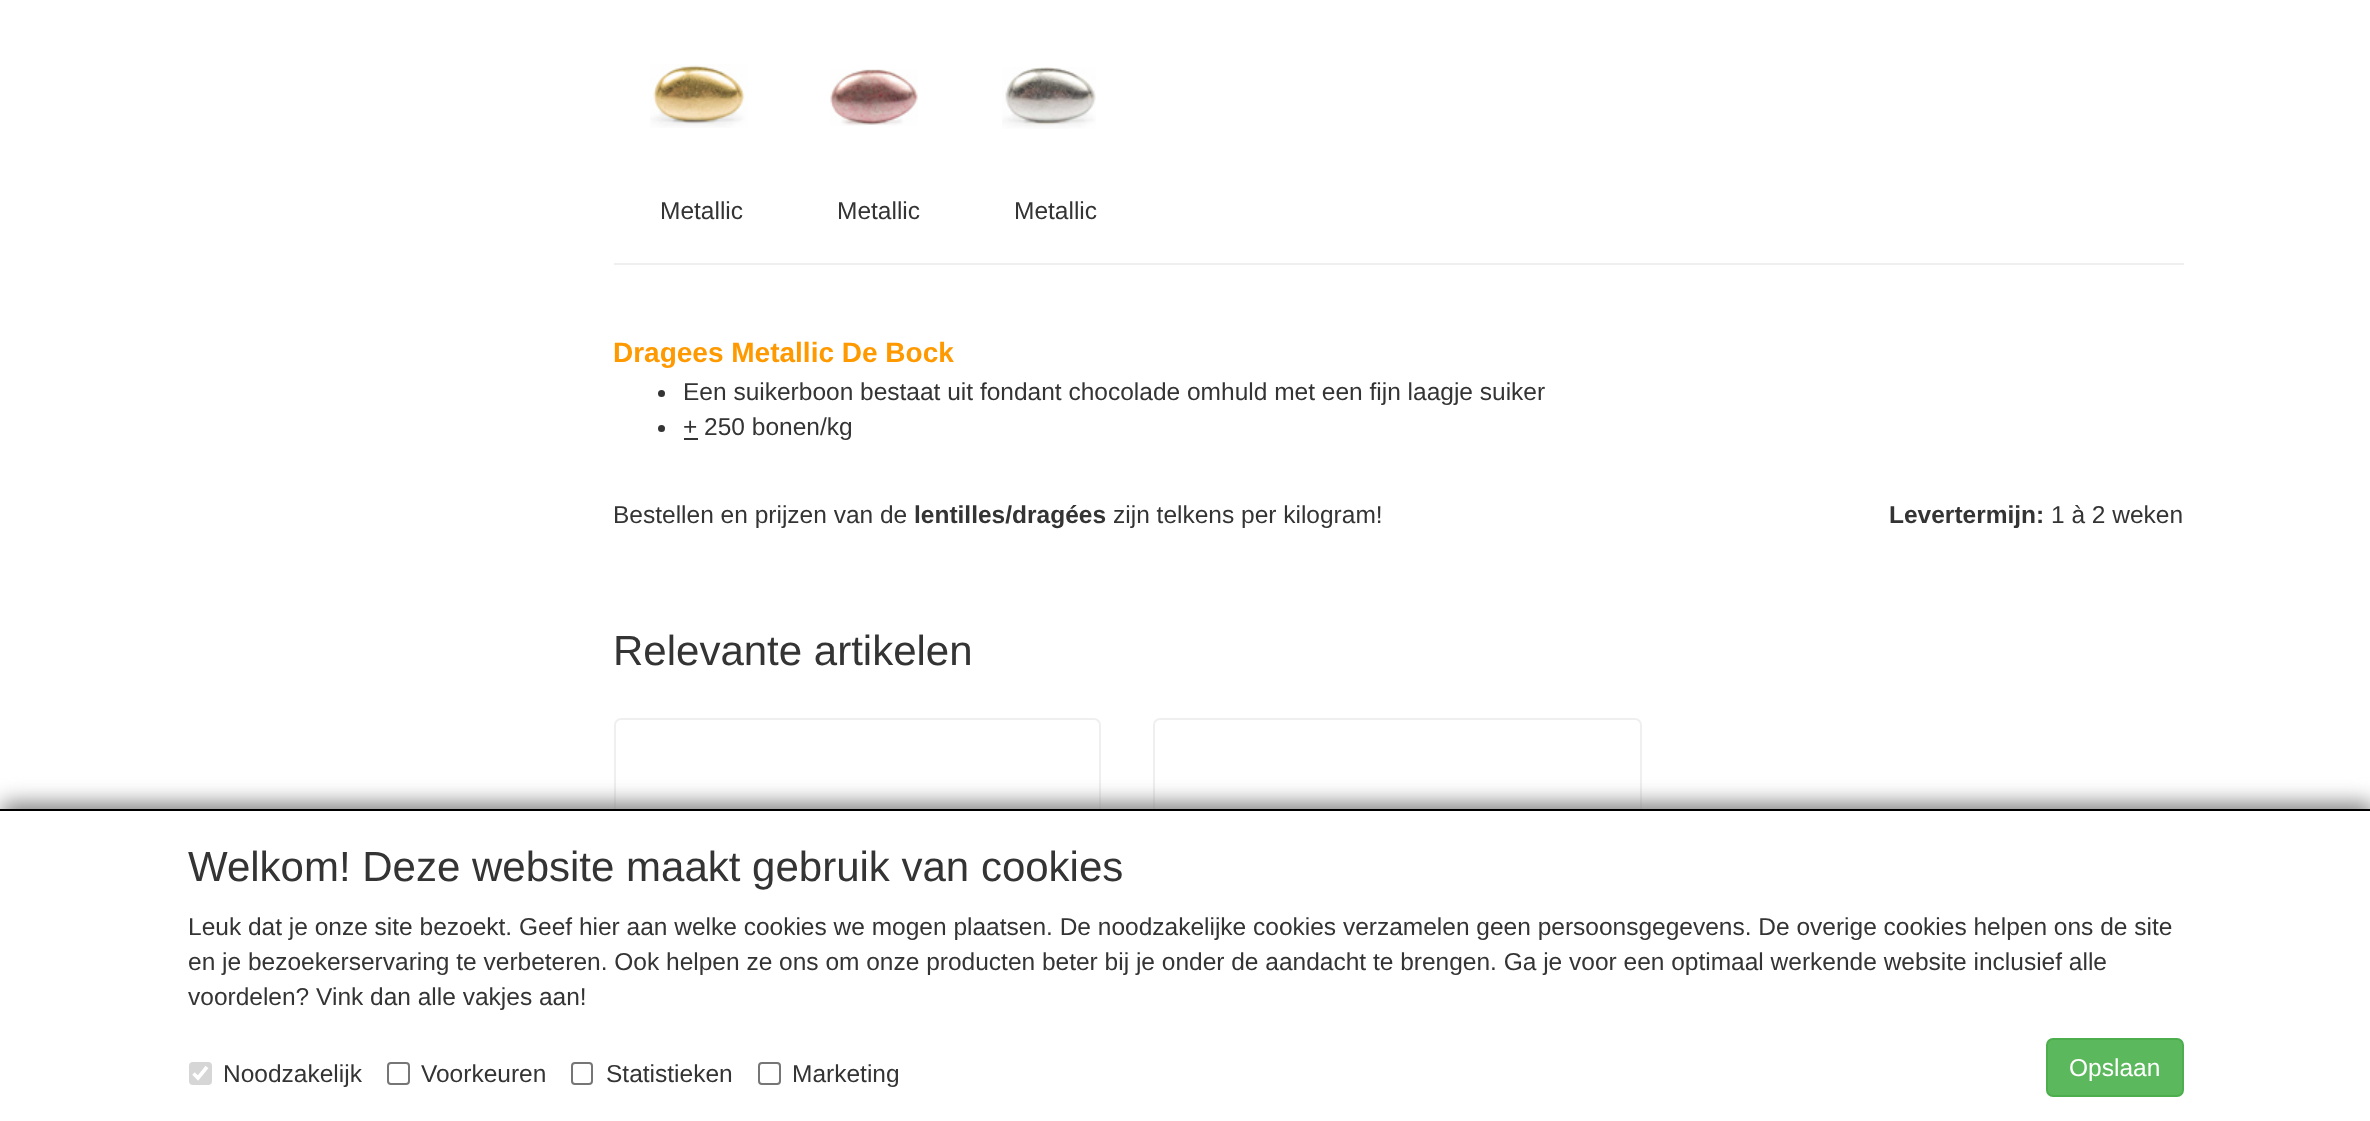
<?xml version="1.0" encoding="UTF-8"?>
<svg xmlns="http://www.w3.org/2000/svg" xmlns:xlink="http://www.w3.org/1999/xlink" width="2370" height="1121">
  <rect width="100%" height="100%" fill="#ffffff" />
  <image x="650" y="64" width="98" height="64" xlink:href="image1.png" />
  <image x="830" y="69" width="88" height="57" xlink:href="image2.png" />
  <image x="1002" y="67" width="94" height="62" xlink:href="image3.png" />
  <rect x="614" y="263" width="1570" height="2" fill="#efefef" />
  <circle cx="661.5" cy="393.5" r="3.5" fill="#343434" />
  <circle cx="661.5" cy="428.5" r="3.5" fill="#343434" />
  <rect x="684" y="438" width="14" height="2" fill="#343434" />
  <rect x="615" y="719" width="485" height="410" rx="6" fill="none" stroke="#efefef" stroke-width="2" />
  <rect x="1154" y="719" width="487" height="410" rx="6" fill="none" stroke="#efefef" stroke-width="2" />
  <rect x="2" y="803" width="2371" height="314" fill="#808080" filter="blur(10.5px)" />
  <rect y="811" width="2370" height="310" fill="#ffffff" />
  <rect y="809" width="2370" height="2" fill="#000000" />
  <rect x="189" y="1062" width="23" height="23" rx="4" fill="#d6d6d6" />
  <path d="M 193.5 1073.5 l 4.5 4.5 l 9 -11" fill="none" stroke="#ffffff" stroke-width="3.6" />
  <rect x="388" y="1063" width="21" height="21" rx="3" fill="none" stroke="#767676" stroke-width="2" />
  <rect x="572" y="1063" width="20" height="21" rx="3" fill="none" stroke="#767676" stroke-width="2" />
  <rect x="759" y="1063" width="21" height="21" rx="3" fill="none" stroke="#767676" stroke-width="2" />
  <rect x="2047" y="1039" width="136" height="57" rx="6" fill="#5cb85c" stroke="#4cae4c" stroke-width="2" />
  <text x="660" y="219" style="font-family: Liberation Sans; font-size: 24.5px; fill: #343434">Metallic</text>
  <text x="837" y="219" style="font-family: Liberation Sans; font-size: 24.5px; fill: #343434">Metallic</text>
  <text x="1014" y="219" style="font-family: Liberation Sans; font-size: 24.5px; fill: #343434">Metallic</text>
  <text x="613" y="362" style="font-family: Liberation Sans; font-size: 28px; font-weight: bold; fill: #ff9900">Dragees Metallic De Bock</text>
  <text x="683" y="400" style="font-family: Liberation Sans; font-size: 24.5px; fill: #343434">Een suikerboon bestaat uit fondant chocolade omhuld met een fijn laagje suiker</text>
  <text x="683" y="435" style="font-family: Liberation Sans; font-size: 24.5px; fill: #343434">+ 250 bonen/kg</text>
  <text x="613" y="523" style="font-family: Liberation Sans; font-size: 24.5px; fill: #343434">Bestellen en prijzen van de</text>
  <text x="914" y="523" style="font-family: Liberation Sans; font-size: 24.5px; font-weight: bold; fill: #343434">lentilles/dragées</text>
  <text x="1113" y="523" style="font-family: Liberation Sans; font-size: 24.5px; fill: #343434">zijn telkens per kilogram!</text>
  <text x="1889" y="523" style="font-family: Liberation Sans; font-size: 24.5px; font-weight: bold; fill: #343434">Levertermijn:</text>
  <text x="2051" y="523" style="font-family: Liberation Sans; font-size: 24.5px; fill: #343434">1 à 2 weken</text>
  <text x="613" y="665" style="font-family: Liberation Sans; font-size: 42px; fill: #343434">Relevante artikelen</text>
  <text x="188" y="881" style="font-family: Liberation Sans; font-size: 42px; fill: #343434">Welkom! Deze website maakt gebruik van cookies</text>
  <text x="188" y="935" style="font-family: Liberation Sans; font-size: 24.5px; fill: #343434">Leuk dat je onze site bezoekt. Geef hier aan welke cookies we mogen plaatsen. De noodzakelijke cookies verzamelen geen persoonsgegevens. De overige cookies helpen ons de site</text>
  <text x="188" y="970" style="font-family: Liberation Sans; font-size: 24.5px; fill: #343434">en je bezoekerservaring te verbeteren. Ook helpen ze ons om onze producten beter bij je onder de aandacht te brengen. Ga je voor een optimaal werkende website inclusief alle</text>
  <text x="188" y="1005" style="font-family: Liberation Sans; font-size: 24.5px; fill: #343434">voordelen? Vink dan alle vakjes aan!</text>
  <text x="223" y="1082" style="font-family: Liberation Sans; font-size: 24.5px; fill: #343434">Noodzakelijk</text>
  <text x="421" y="1082" style="font-family: Liberation Sans; font-size: 24.5px; fill: #343434">Voorkeuren</text>
  <text x="606" y="1082" style="font-family: Liberation Sans; font-size: 24.5px; fill: #343434">Statistieken</text>
  <text x="792" y="1082" style="font-family: Liberation Sans; font-size: 24.5px; fill: #343434">Marketing</text>
  <text x="2069" y="1076" style="font-family: Liberation Sans; font-size: 24.5px; fill: #fefefe">Opslaan</text>
</svg>
